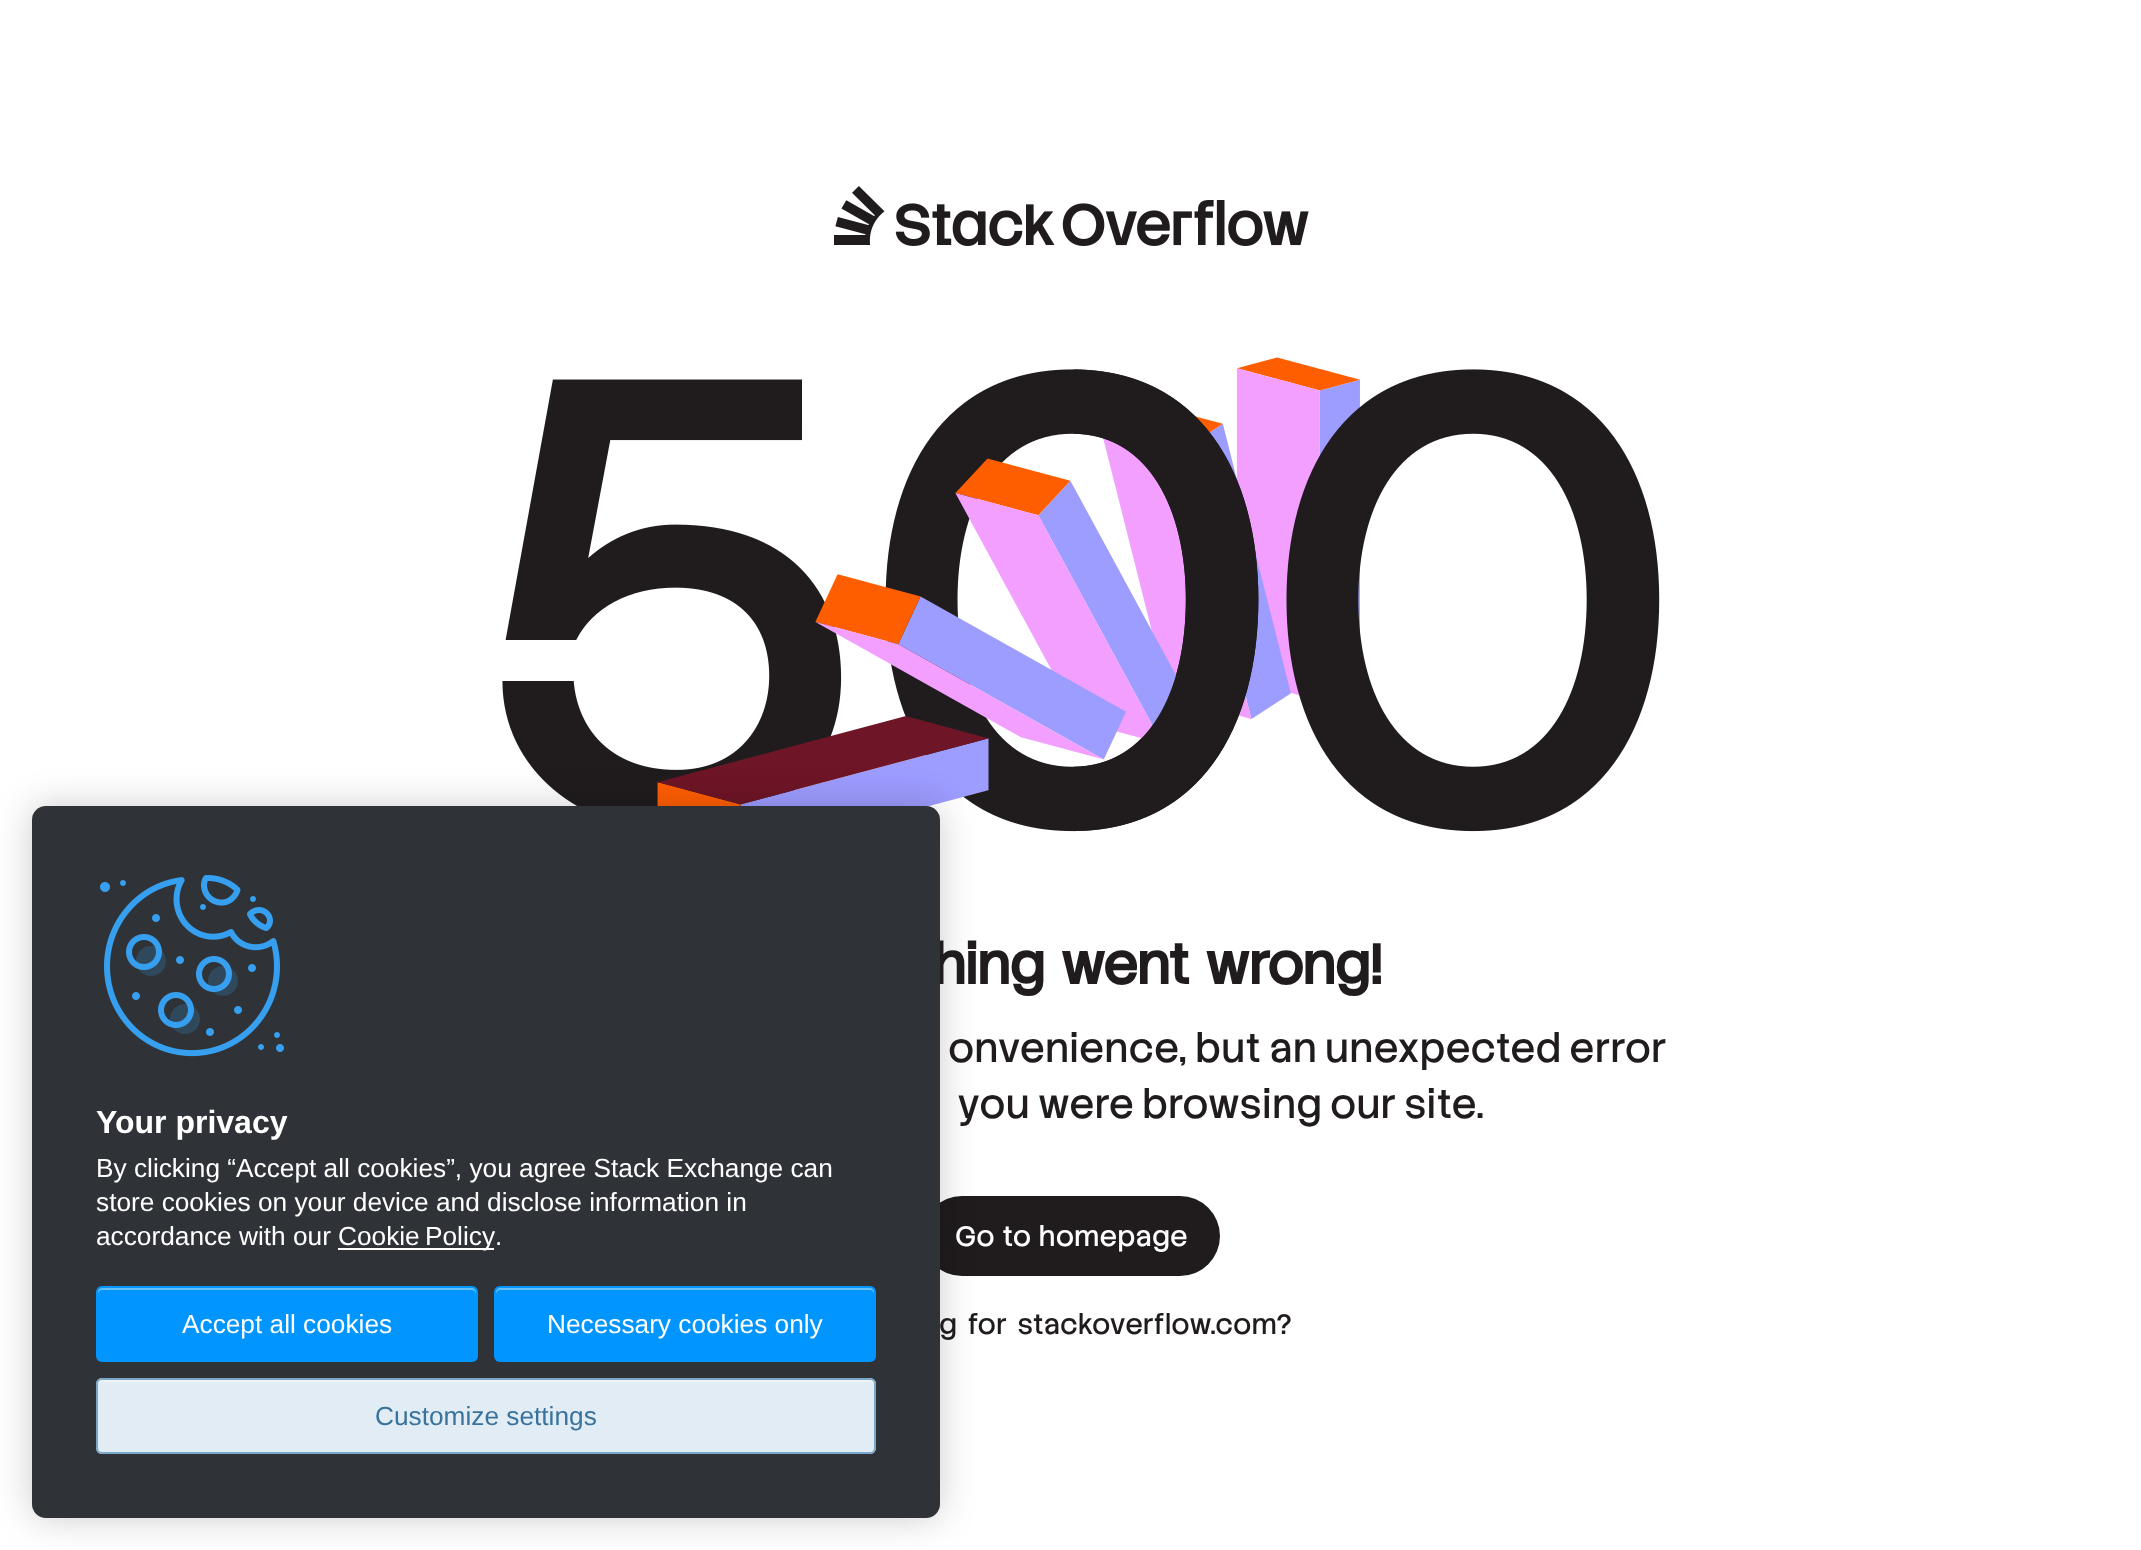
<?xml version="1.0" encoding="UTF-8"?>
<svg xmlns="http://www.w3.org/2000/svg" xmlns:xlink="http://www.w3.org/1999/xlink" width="2141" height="1550">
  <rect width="100%" height="100%" fill="#ffffff" />
  <image x="502" y="357" width="1158" height="475" xlink:href="image3.png" />
  <rect x="922" y="1196" width="298" height="80" rx="40" fill="#201c1d" />
  <rect x="32" y="806" width="908" height="712" rx="14" fill="#000000" fill-opacity="0.2" filter="blur(18px)" />
  <image x="834" y="186" width="475" height="60" xlink:href="image2.png" />
  <text x="933" y="984" word-spacing="5" style="font-family: Stack Sans Headline; font-size: 56px; font-weight: bold; fill: #201c1d">hing went wrong!</text>
  <rect x="32" y="806" width="908" height="712" rx="14" fill="#2f3337" />
  <rect x="96" y="1378" width="780" height="76" rx="6" fill="#e1ecf4" />
  <path d="M 102 1382 h 768 c 2 0 4 2 4 4 v -2 c 0 -2 -2 -4 -4 -4 h -768 c -2 0 -4 2 -4 4 v 2 c 0 -2 2 -4 4 -4 z" fill="#edf4f8" />
  <rect x="97" y="1379" width="778" height="74" rx="5" fill="none" stroke="#7aa7c7" stroke-width="2" />
  <text x="375" y="1425" style="font-family: Liberation Sans; font-size: 26.25px; fill: #39739d">Customize settings</text>
  <rect x="494" y="1286" width="382" height="76" rx="6" fill="#0095ff" />
  <text x="547" y="1333" style="font-family: Liberation Sans; font-size: 26.25px; fill: #ffffff">Necessary cookies only</text>
  <path d="M 500 1290 h 370 c 2 0 4 2 4 4 v -2 c 0 -2 -2 -4 -4 -4 h -370 c -2 0 -4 2 -4 4 v 2 c 0 -2 2 -4 4 -4 z" fill="#66bfff" />
  <rect x="96" y="1286" width="382" height="76" rx="6" fill="#0095ff" />
  <text x="182" y="1333" style="font-family: Liberation Sans; font-size: 26.25px; fill: #ffffff">Accept all cookies</text>
  <path d="M 102 1290 h 370 c 2 0 4 2 4 4 v -2 c 0 -2 -2 -4 -4 -4 h -370 c -2 0 -4 2 -4 4 v 2 c 0 -2 2 -4 4 -4 z" fill="#66bfff" />
  <text x="495" y="1245" style="font-family: Liberation Sans; font-size: 26.25px; fill: #ffffff">.</text>
  <rect x="338" y="1248" width="156" height="2" fill="#ffffff" />
  <text x="338" y="1245" word-spacing="-2" style="font-family: Liberation Sans; font-size: 26.25px; fill: #ffffff">Cookie Policy</text>
  <text x="96" y="1245" style="font-family: Liberation Sans; font-size: 26.25px; fill: #ffffff">accordance with our</text>
  <text x="96" y="1211" style="font-family: Liberation Sans; font-size: 26.25px; fill: #ffffff">store cookies on your device and disclose information in</text>
  <text x="96" y="1177" style="font-family: Liberation Sans; font-size: 26.25px; fill: #ffffff">By clicking “Accept all cookies”, you agree Stack Exchange can</text>
  <text x="96" y="1133" style="font-family: Liberation Sans; font-size: 32px; font-weight: bold; fill: #ffffff">Your privacy</text>
  <image x="100" y="875" width="184" height="182" xlink:href="image1.png" />
  <text x="948" y="1062" word-spacing="-1.5" style="font-family: Stack Sans Text; font-size: 40px; fill: #201c1d">onvenience, but an unexpected error</text>
  <text x="957" y="1118" word-spacing="-1.5" style="font-family: Stack Sans Text; font-size: 40px; fill: #201c1d">you were browsing our site.</text>
  <text x="955" y="1246" word-spacing="1" style="font-family: Stack Sans Text; font-size: 28px; fill: #ffffff">Go to homepage</text>
  <text x="939" y="1334" word-spacing="4" style="font-family: Stack Sans Text; font-size: 28px; fill: #201c1d">g for stackoverflow.com?</text>
</svg>
